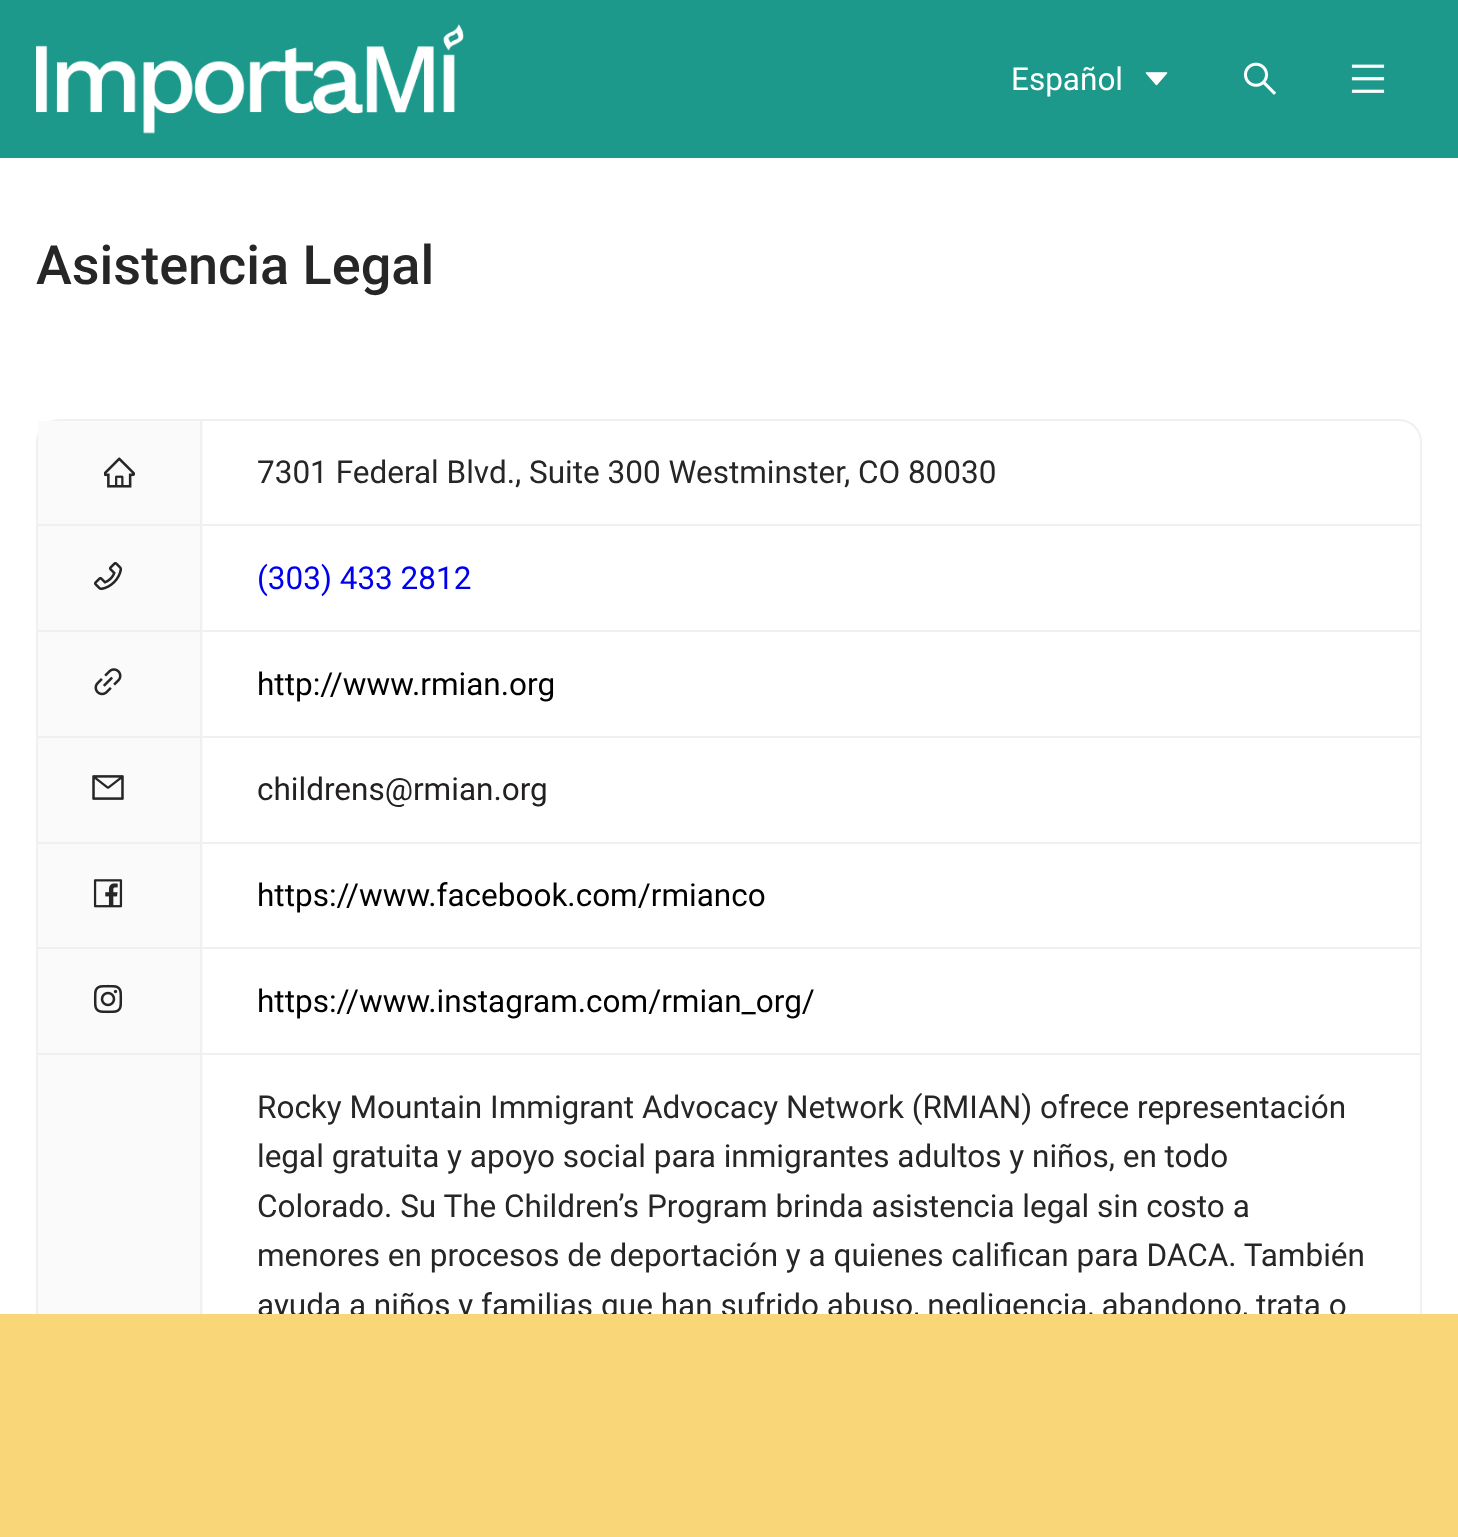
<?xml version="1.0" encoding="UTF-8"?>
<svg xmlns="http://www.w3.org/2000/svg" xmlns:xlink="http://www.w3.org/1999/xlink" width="1458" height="1537">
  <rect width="100%" height="100%" fill="#ffffff" />
  <rect width="1458" height="158" fill="#1c998b" />
  <image x="36" y="24" width="428" height="110" xlink:href="image1.png" />
  <image x="1145" y="72" width="23" height="14" xlink:href="image2.png" />
  <image x="1243" y="62" width="33" height="33" xlink:href="image3.png" />
  <image x="1351" y="64" width="34" height="29" xlink:href="image4.png" />
  <rect x="37" y="420" width="1384" height="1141" rx="22" fill="none" stroke="#f0f0f0" stroke-width="2" />
  <rect x="38" y="524" width="1384" height="2" fill="#f0f0f0" />
  <rect x="38" y="421" width="165" height="103" fill="#fafafa" />
  <image x="104" y="457" width="31" height="31" xlink:href="image5.png" />
  <rect x="38" y="630" width="1384" height="2" fill="#f0f0f0" />
  <rect x="38" y="526" width="165" height="104" fill="#fafafa" />
  <image x="94" y="562" width="29" height="29" xlink:href="image6.png" />
  <rect x="38" y="736" width="1384" height="2" fill="#f0f0f0" />
  <rect x="38" y="632" width="165" height="104" fill="#fafafa" />
  <image x="94" y="668" width="28" height="28" xlink:href="image7.png" />
  <rect x="38" y="842" width="1384" height="2" fill="#f0f0f0" />
  <rect x="38" y="738" width="165" height="104" fill="#fafafa" />
  <image x="92" y="775" width="32" height="25" xlink:href="image8.png" />
  <rect x="38" y="947" width="1384" height="2" fill="#f0f0f0" />
  <rect x="38" y="844" width="165" height="103" fill="#fafafa" />
  <image x="93" y="879" width="30" height="29" xlink:href="image9.png" />
  <rect x="38" y="1053" width="1384" height="2" fill="#f0f0f0" />
  <rect x="38" y="949" width="165" height="104" fill="#fafafa" />
  <image x="93" y="984" width="30" height="30" xlink:href="image10.png" />
  <rect x="38" y="1055" width="165" height="259" fill="#fafafa" />
  <rect x="200" y="419" width="2" height="895" fill="#f0f0f0" />
  <text x="1011" y="90" style="font-family: Roboto; font-size: 31.5px; fill: #ffffff">Español</text>
  <text x="36" y="284" style="font-family: Roboto; font-size: 54px; font-weight: 500; fill: #262626">Asistencia Legal</text>
  <text x="257" y="483" style="font-family: Roboto; font-size: 31.5px; fill: #262626">7301 Federal Blvd., Suite 300 Westminster, CO 80030</text>
  <text x="257" y="589" style="font-family: Roboto; font-size: 31.5px; fill: #0000ee">(303) 433 2812</text>
  <text x="257" y="695" style="font-family: Roboto; font-size: 31.5px; fill: #000000">http://www.rmian.org</text>
  <text x="257" y="800" style="font-family: Roboto; font-size: 31.5px; fill: #232020">childrens@rmian.org</text>
  <text x="257" y="906" style="font-family: Roboto; font-size: 31.5px; fill: #000000">https://www.facebook.com/rmianco</text>
  <text x="257" y="1012" style="font-family: Roboto; font-size: 31.5px; fill: #000000">https://www.instagram.com/rmian_org/</text>
  <text x="257" y="1118" style="font-family: Roboto; font-size: 31.5px; fill: #262626">Rocky Mountain Immigrant Advocacy Network (RMIAN) ofrece representación</text>
  <text x="257" y="1167" style="font-family: Roboto; font-size: 31.5px; fill: #262626">legal gratuita y apoyo social para inmigrantes adultos y niños, en todo</text>
  <text x="257" y="1217" style="font-family: Roboto; font-size: 31.5px; fill: #262626">Colorado. Su The Children’s Program brinda asistencia legal sin costo a</text>
  <text x="257" y="1266" style="font-family: Roboto; font-size: 31.5px; fill: #262626">menores en procesos de deportación y a quienes califican para DACA. También</text>
  <text x="257" y="1316" style="font-family: Roboto; font-size: 31.5px; fill: #262626">ayuda a niños y familias que han sufrido abuso, negligencia, abandono, trata o</text>
  <rect y="1314" width="1458" height="223" fill="#f9d779" />
</svg>
